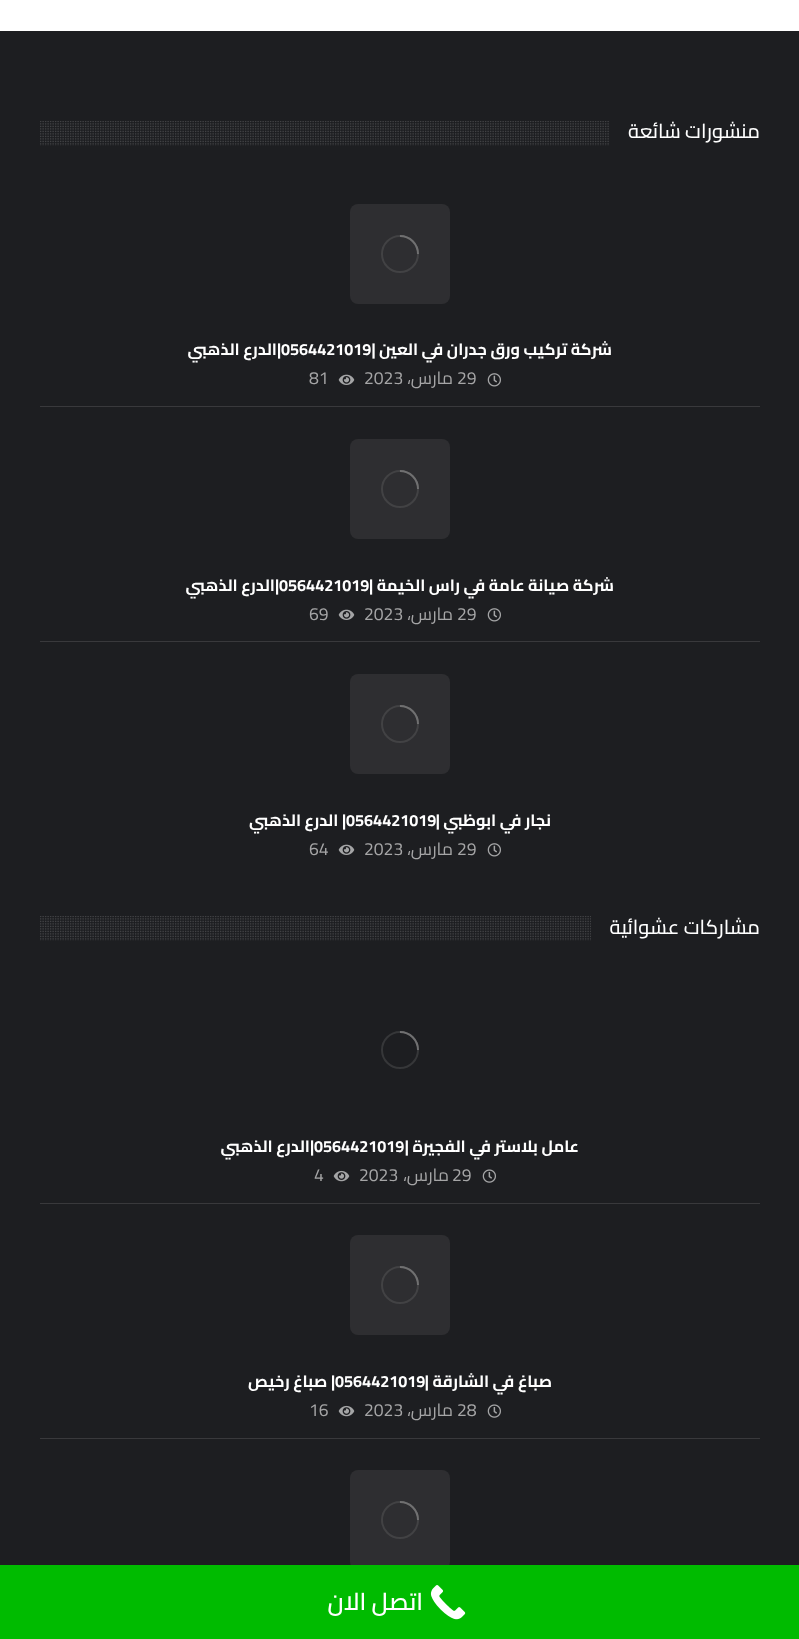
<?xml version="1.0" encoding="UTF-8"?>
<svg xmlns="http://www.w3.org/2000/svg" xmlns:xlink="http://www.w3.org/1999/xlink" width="799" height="1639">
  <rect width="100%" height="100%" fill="#ffffff" />
  <rect y="31" width="799" height="1534" fill="#1d1e21" />
  <image x="40" y="121" width="569" height="25" xlink:href="image1.png" />
  <rect x="40" y="406" width="720" height="1" fill="#39393c" />
  <rect x="350" y="204" width="100" height="100" rx="8" fill="#2e2e31" />
  <circle cx="400" cy="254" r="18" fill="none" stroke="#424244" stroke-width="2" />
  <path d="M 418 254 c 0 -10 -8 -18 -18 -18" fill="none" stroke="#707071" stroke-width="2" />
  <image x="487" y="373" width="14" height="14" xlink:href="image2.png" />
  <image x="338" y="374" width="17" height="11" xlink:href="image3.png" />
  <rect x="40" y="641" width="720" height="1" fill="#39393c" />
  <rect x="350" y="439" width="100" height="100" rx="8" fill="#2e2e31" />
  <circle cx="400" cy="489" r="18" fill="none" stroke="#424244" stroke-width="2" />
  <path d="M 418 489 c 0 -10 -8 -18 -18 -18" fill="none" stroke="#707071" stroke-width="2" />
  <image x="487" y="608" width="14" height="14" xlink:href="image2.png" />
  <image x="338" y="609" width="17" height="11" xlink:href="image3.png" />
  <rect x="350" y="674" width="100" height="100" rx="8" fill="#2e2e31" />
  <circle cx="400" cy="724" r="18" fill="none" stroke="#424244" stroke-width="2" />
  <path d="M 418 724 c 0 -10 -8 -18 -18 -18" fill="none" stroke="#707071" stroke-width="2" />
  <image x="487" y="843" width="14" height="14" xlink:href="image2.png" />
  <image x="338" y="844" width="17" height="11" xlink:href="image3.png" />
  <image x="40" y="916" width="551" height="25" xlink:href="image4.png" />
  <rect x="40" y="1203" width="720" height="1" fill="#39393c" />
  <circle cx="400" cy="1050" r="18" fill="none" stroke="#363739" stroke-width="2" />
  <path d="M 418 1050 c 0 -10 -8 -18 -18 -18" fill="none" stroke="#707071" stroke-width="2" />
  <image x="482" y="1169" width="14" height="14" xlink:href="image5.png" />
  <image x="333" y="1170" width="17" height="12" xlink:href="image6.png" />
  <rect x="40" y="1438" width="720" height="1" fill="#39393c" />
  <rect x="350" y="1235" width="100" height="100" rx="8" fill="#2e2e31" />
  <circle cx="400" cy="1285" r="18" fill="none" stroke="#424244" stroke-width="2" />
  <path d="M 418 1285 c 0 -10 -8 -18 -18 -18" fill="none" stroke="#707071" stroke-width="2" />
  <image x="487" y="1404" width="14" height="14" xlink:href="image5.png" />
  <image x="338" y="1405" width="17" height="12" xlink:href="image6.png" />
  <rect x="350" y="1470" width="100" height="100" rx="8" fill="#2e2e31" />
  <circle cx="400" cy="1520" r="18" fill="none" stroke="#424244" stroke-width="2" />
  <path d="M 418 1520 c 0 -10 -8 -18 -18 -18" fill="none" stroke="#707071" stroke-width="2" />
  <rect y="1565" width="799" height="74" fill="#00bb00" />
  <image x="430" y="1585" width="36" height="35" xlink:href="image7.png" />
  <text x="760" y="138" style="font-family: Cairo; font-size: 20px; font-weight: 500; direction: rtl; fill: #ffffff">منشورات شائعة</text>
  <text x="612" y="355" style="font-family: Cairo; font-size: 16.25px; font-weight: bold; direction: rtl; fill: #ffffff">شركة تركيب ورق جدران في العين |</text>
  <text x="281" y="355" style="font-family: Cairo; font-size: 16.25px; font-weight: bold; fill: #ffffff">0564421019</text>
  <text x="281" y="355" style="font-family: Cairo; font-size: 16.25px; font-weight: bold; direction: rtl; fill: #ffffff">|الدرع الذهبي</text>
  <text x="457" y="384" style="font-family: Cairo; font-size: 17.5px; fill: #a5a5a6">29</text>
  <text x="453" y="384" style="font-family: Cairo; font-size: 17.5px; direction: rtl; fill: #a5a5a6">مارس،</text>
  <text x="364" y="384" style="font-family: Cairo; font-size: 17.5px; fill: #a5a5a6">2023</text>
  <text x="309" y="384" style="font-family: Cairo; font-size: 17.5px; fill: #a5a5a6">81</text>
  <text x="614" y="591" style="font-family: Cairo; font-size: 16.25px; font-weight: bold; direction: rtl; fill: #ffffff">شركة صيانة عامة في راس الخيمة |</text>
  <text x="279" y="591" style="font-family: Cairo; font-size: 16.25px; font-weight: bold; fill: #ffffff">0564421019</text>
  <text x="279" y="591" style="font-family: Cairo; font-size: 16.25px; font-weight: bold; direction: rtl; fill: #ffffff">|الدرع الذهبي</text>
  <text x="457" y="620" style="font-family: Cairo; font-size: 17.5px; fill: #a5a5a6">29</text>
  <text x="453" y="620" style="font-family: Cairo; font-size: 17.5px; direction: rtl; fill: #a5a5a6">مارس،</text>
  <text x="364" y="620" style="font-family: Cairo; font-size: 17.5px; fill: #a5a5a6">2023</text>
  <text x="309" y="620" style="font-family: Cairo; font-size: 17.5px; fill: #a5a5a6">69</text>
  <text x="551" y="826" style="font-family: Cairo; font-size: 16.25px; font-weight: bold; direction: rtl; fill: #ffffff">نجار في ابوظبي |</text>
  <text x="346" y="826" style="font-family: Cairo; font-size: 16.25px; font-weight: bold; fill: #ffffff">0564421019</text>
  <text x="346" y="826" style="font-family: Cairo; font-size: 16.25px; font-weight: bold; direction: rtl; fill: #ffffff">| الدرع الذهبي</text>
  <text x="457" y="855" style="font-family: Cairo; font-size: 17.5px; fill: #a5a5a6">29</text>
  <text x="453" y="855" style="font-family: Cairo; font-size: 17.5px; direction: rtl; fill: #a5a5a6">مارس،</text>
  <text x="364" y="855" style="font-family: Cairo; font-size: 17.5px; fill: #a5a5a6">2023</text>
  <text x="309" y="855" style="font-family: Cairo; font-size: 17.5px; fill: #a5a5a6">64</text>
  <text x="760" y="934" style="font-family: Cairo; font-size: 20px; font-weight: 500; direction: rtl; fill: #ffffff">مشاركات عشوائية</text>
  <text x="579" y="1152" style="font-family: Cairo; font-size: 16.25px; font-weight: bold; direction: rtl; fill: #ffffff">عامل بلاستر في الفجيرة |</text>
  <text x="314" y="1152" style="font-family: Cairo; font-size: 16.25px; font-weight: bold; fill: #ffffff">0564421019</text>
  <text x="314" y="1152" style="font-family: Cairo; font-size: 16.25px; font-weight: bold; direction: rtl; fill: #ffffff">|الدرع الذهبي</text>
  <text x="452" y="1181" style="font-family: Cairo; font-size: 17.5px; fill: #a5a5a6">29</text>
  <text x="449" y="1181" style="font-family: Cairo; font-size: 17.5px; direction: rtl; fill: #a5a5a6">مارس،</text>
  <text x="359" y="1181" style="font-family: Cairo; font-size: 17.5px; fill: #a5a5a6">2023</text>
  <text x="314" y="1181" style="font-family: Cairo; font-size: 17.5px; fill: #a5a5a6">4</text>
  <text x="552" y="1387" style="font-family: Cairo; font-size: 16.25px; font-weight: bold; direction: rtl; fill: #ffffff">صباغ في الشارقة |</text>
  <text x="335" y="1387" style="font-family: Cairo; font-size: 16.25px; font-weight: bold; fill: #ffffff">0564421019</text>
  <text x="335" y="1387" style="font-family: Cairo; font-size: 16.25px; font-weight: bold; direction: rtl; fill: #ffffff">| صباغ رخيص</text>
  <text x="457" y="1416" style="font-family: Cairo; font-size: 17.5px; fill: #a5a5a6">28</text>
  <text x="453" y="1416" style="font-family: Cairo; font-size: 17.5px; direction: rtl; fill: #a5a5a6">مارس،</text>
  <text x="364" y="1416" style="font-family: Cairo; font-size: 17.5px; fill: #a5a5a6">2023</text>
  <text x="309" y="1416" style="font-family: Cairo; font-size: 17.5px; fill: #a5a5a6">16</text>
  <text x="423" y="1610" style="font-family: Cairo; font-size: 24px; font-weight: 600; direction: rtl; fill: #ffffff">اتصل الان</text>
</svg>
